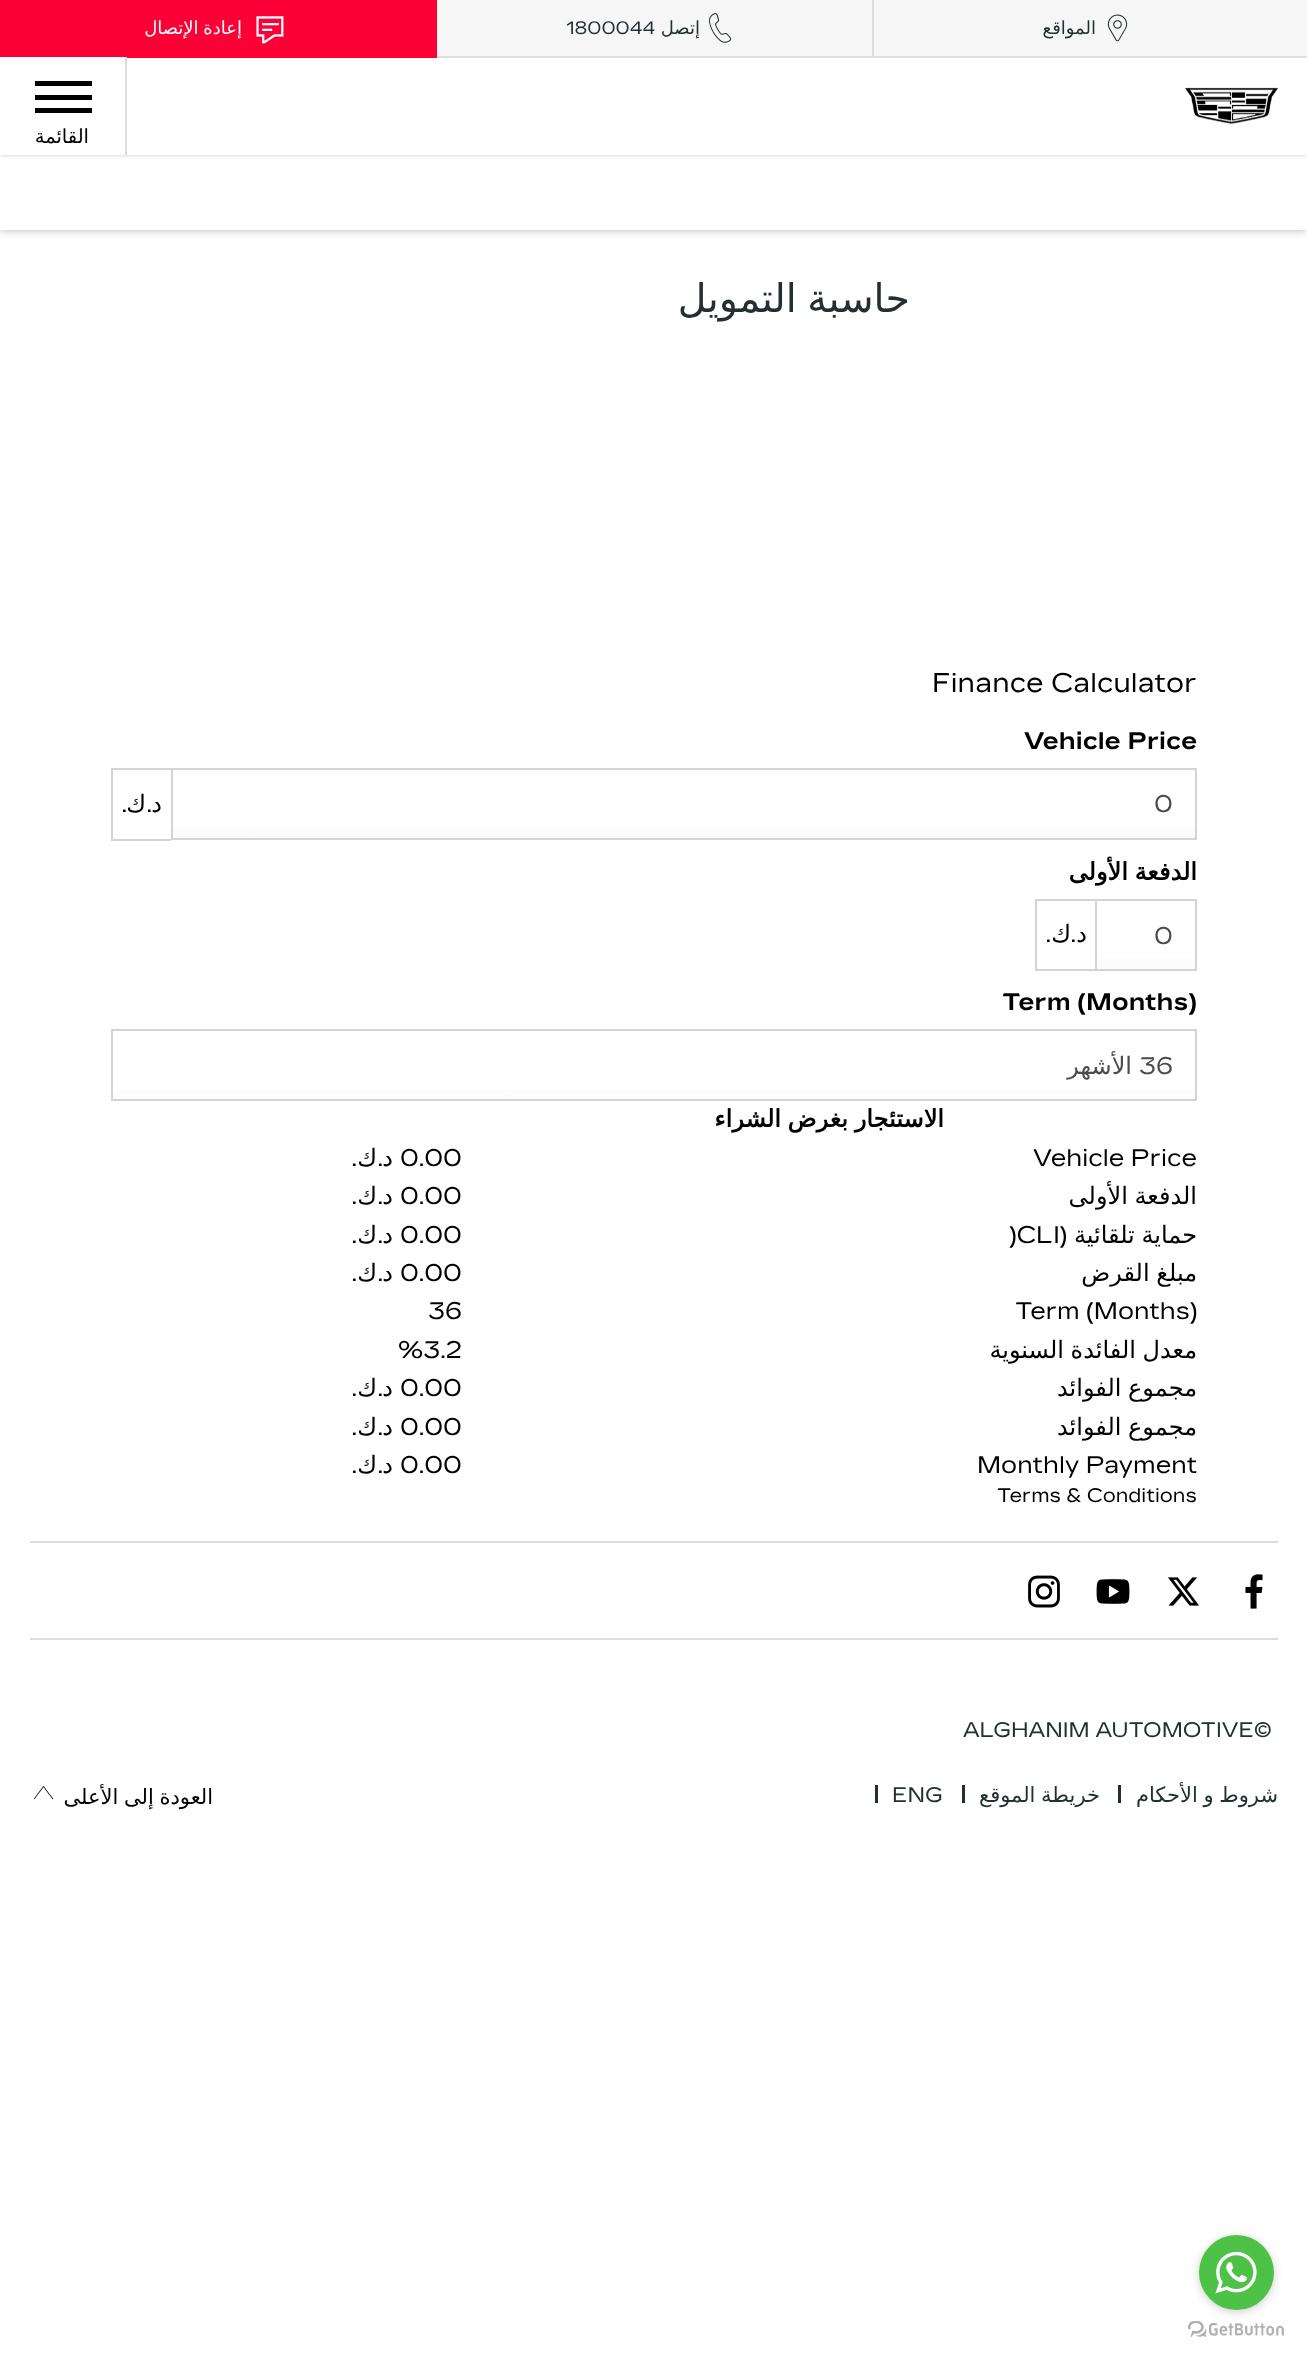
<?xml version="1.0" encoding="UTF-8"?>
<svg xmlns="http://www.w3.org/2000/svg" xmlns:xlink="http://www.w3.org/1999/xlink" width="1307" height="2360">
  <defs>
    <linearGradient id="g1" gradientUnits="userSpaceOnUse" x1="684" y1="770" x2="684" y2="839"><stop offset="0" stop-color="#ffffff" /><stop offset="1" stop-color="#fcfcfc" /></linearGradient>
    <linearGradient id="g2" gradientUnits="userSpaceOnUse" x1="1146" y1="900" x2="1146" y2="969"><stop offset="0" stop-color="#ffffff" /><stop offset="1" stop-color="#fcfcfc" /></linearGradient>
    <linearGradient id="g3" gradientUnits="userSpaceOnUse" x1="654" y1="1031" x2="654" y2="1100"><stop offset="0" stop-color="#ffffff" /><stop offset="1" stop-color="#fcfcfc" /></linearGradient>
  </defs>
  <rect width="100%" height="100%" fill="#ffffff" />
  <rect width="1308" height="230" fill="#000000" fill-opacity="0.3" filter="blur(4px)" />
  <rect y="155" width="1307" height="75" fill="#ffffff" />
  <rect width="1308" height="155" fill="#000000" fill-opacity="0.2" filter="blur(2px)" />
  <rect x="127" y="58" width="1180" height="97" fill="#ffffff" />
  <rect x="874" width="433" height="56" fill="#f6f6f6" />
  <rect x="873" y="56" width="434" height="2" fill="#dddddd" />
  <image x="1107" y="14" width="21" height="28" xlink:href="image1.png" />
  <rect x="437" width="435" height="56" fill="#f6f6f6" />
  <rect x="872" width="2" height="57" fill="#dddddd" />
  <rect x="437" y="56" width="436" height="2" fill="#dddddd" />
  <image x="708" y="13" width="24" height="30" xlink:href="image2.png" />
  <rect width="437" height="58" fill="#fa0037" />
  <image x="256" y="16" width="28" height="28" xlink:href="image3.png" />
  <image x="1185" y="87" width="93" height="37" xlink:href="image4.png" />
  <rect y="57" width="125" height="98" fill="#ffffff" />
  <rect x="125" y="57" width="2" height="98" fill="#dddddd" />
  <rect x="35" y="108" width="57" height="5" fill="#000000" />
  <rect x="35" y="81" width="57" height="5" fill="#000000" />
  <rect x="35" y="95" width="57" height="5" fill="#000000" />
  <rect x="173" y="828" width="1022" height="10" fill="url(#g1)" />
  <rect x="172" y="769" width="1024" height="70" fill="none" stroke="#d4d4d4" stroke-width="2" />
  <rect x="111" y="768" width="60" height="2" fill="#d4d4d4" />
  <rect x="111" y="839" width="60" height="2" fill="#d4d4d4" />
  <rect x="111" y="768" width="2" height="72" fill="#d4d4d4" />
  <rect x="1097" y="958" width="98" height="11" fill="url(#g2)" />
  <rect x="1096" y="900" width="100" height="70" fill="none" stroke="#d4d4d4" stroke-width="2" />
  <rect x="1035" y="899" width="60" height="2" fill="#d4d4d4" />
  <rect x="1035" y="969" width="60" height="2" fill="#d4d4d4" />
  <rect x="1035" y="899" width="2" height="72" fill="#d4d4d4" />
  <rect x="113" y="1089" width="1082" height="10" fill="url(#g3)" />
  <rect x="112" y="1030" width="1084" height="70" fill="none" stroke="#d4d4d4" stroke-width="2" />
  <rect x="30" y="1541" width="1248" height="2" fill="#dddddd" />
  <rect x="30" y="1638" width="1248" height="2" fill="#dddddd" />
  <image x="1245" y="1574" width="18" height="35" xlink:href="image5.png" />
  <image x="1168" y="1577" width="31" height="29" xlink:href="image6.png" />
  <image x="1096" y="1579" width="34" height="25" xlink:href="image7.png" />
  <image x="1028" y="1575" width="32" height="33" xlink:href="image8.png" />
  <rect x="1118" y="1785" width="3" height="18" fill="#252f32" />
  <rect x="962" y="1785" width="3" height="18" fill="#252f32" />
  <rect x="875" y="1785" width="3" height="18" fill="#252f32" />
  <image x="33" y="1786" width="21" height="14" xlink:href="image9.png" />
  <image x="1188" y="2321" width="96" height="16" xlink:href="image11.png" />
  <rect x="1199" y="2237" width="75" height="75" rx="37.5" fill="#888888" fill-opacity="0.4" filter="blur(5px)" />
  <circle cx="1236.5" cy="2272.5" r="37.5" fill="#4dc247" />
  <image x="1215" y="2251" width="42" height="43" xlink:href="image10.png" />
  <text x="1096" y="34" style="font-family: DejaVu Sans; font-size: 18px; direction: rtl; fill: #252f32">المواقع</text>
  <text x="700" y="34" style="font-family: DejaVu Sans; font-size: 18px; direction: rtl; fill: #252f32">إتصل</text>
  <text x="566" y="34" style="font-family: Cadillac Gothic; font-size: 18px; fill: #252f32">1800044</text>
  <text x="242" y="34" word-spacing="-1" style="font-family: DejaVu Sans; font-size: 18px; direction: rtl; fill: #ffffff">إعادة الإتصال</text>
  <text x="89" y="143" style="font-family: DejaVu Sans; font-size: 19.5px; direction: rtl; fill: #000000">القائمة</text>
  <text x="910" y="312" word-spacing="-2" style="font-family: DejaVu Sans; font-size: 39.5px; direction: rtl; fill: #252f32">حاسبة التمويل</text>
  <text x="932" y="692" style="font-family: Cadillac Gothic; font-size: 27px; fill: #000000">Finance Calculator</text>
  <text x="1024" y="749" style="font-family: Cadillac Gothic; font-size: 24px; font-weight: bold; fill: #000000">Vehicle Price</text>
  <text x="1154" y="812" style="font-family: Cadillac Gothic; font-size: 24px; fill: #4c4c4c">0</text>
  <text x="162" y="812" style="font-family: DejaVu Sans; font-size: 24px; direction: rtl; fill: #000000">د</text>
  <text x="152" y="812" style="font-family: Cadillac Gothic; font-size: 24px; direction: rtl; fill: #000000">.</text>
  <text x="146" y="812" style="font-family: DejaVu Sans; font-size: 24px; direction: rtl; fill: #000000">ك</text>
  <text x="127" y="812" style="font-family: Cadillac Gothic; font-size: 24px; direction: rtl; fill: #000000">.</text>
  <text x="1197" y="880" word-spacing="-1" style="font-family: DejaVu Sans; font-size: 24px; font-weight: bold; direction: rtl; fill: #000000">الدفعة الأولى</text>
  <text x="1154" y="944" style="font-family: Cadillac Gothic; font-size: 24px; fill: #4c4c4c">0</text>
  <text x="1087" y="942" style="font-family: DejaVu Sans; font-size: 24px; direction: rtl; fill: #000000">د</text>
  <text x="1076" y="942" style="font-family: Cadillac Gothic; font-size: 24px; direction: rtl; fill: #000000">.</text>
  <text x="1071" y="942" style="font-family: DejaVu Sans; font-size: 24px; direction: rtl; fill: #000000">ك</text>
  <text x="1051" y="942" style="font-family: Cadillac Gothic; font-size: 24px; direction: rtl; fill: #000000">.</text>
  <text x="1002" y="1010" style="font-family: Cadillac Gothic; font-size: 24px; font-weight: bold; fill: #000000">Term (Months)</text>
  <text x="1139" y="1074" style="font-family: Cadillac Gothic; font-size: 24px; fill: #4c4c4c">36</text>
  <text x="1132" y="1074" style="font-family: DejaVu Sans; font-size: 24px; direction: rtl; fill: #4c4c4c">الأشهر</text>
  <text x="944" y="1127" word-spacing="-1" style="font-family: DejaVu Sans; font-size: 24px; font-weight: bold; direction: rtl; fill: #000000">الاستئجار بغرض الشراء</text>
  <text x="1033" y="1166" style="font-family: Cadillac Gothic; font-size: 24px; fill: #000000">Vehicle Price</text>
  <text x="400" y="1166" style="font-family: Cadillac Gothic; font-size: 24px; fill: #000000">0.00</text>
  <text x="393" y="1166" style="font-family: DejaVu Sans; font-size: 24px; direction: rtl; fill: #000000">د</text>
  <text x="383" y="1166" style="font-family: Cadillac Gothic; font-size: 24px; direction: rtl; fill: #000000">.</text>
  <text x="377" y="1166" style="font-family: DejaVu Sans; font-size: 24px; direction: rtl; fill: #000000">ك</text>
  <text x="357" y="1166" style="font-family: Cadillac Gothic; font-size: 24px; direction: rtl; fill: #000000">.</text>
  <text x="1197" y="1204" word-spacing="-1" style="font-family: DejaVu Sans; font-size: 24px; direction: rtl; fill: #000000">الدفعة الأولى</text>
  <text x="400" y="1204" style="font-family: Cadillac Gothic; font-size: 24px; fill: #000000">0.00</text>
  <text x="393" y="1204" style="font-family: DejaVu Sans; font-size: 24px; direction: rtl; fill: #000000">د</text>
  <text x="383" y="1204" style="font-family: Cadillac Gothic; font-size: 24px; direction: rtl; fill: #000000">.</text>
  <text x="377" y="1204" style="font-family: DejaVu Sans; font-size: 24px; direction: rtl; fill: #000000">ك</text>
  <text x="357" y="1204" style="font-family: Cadillac Gothic; font-size: 24px; direction: rtl; fill: #000000">.</text>
  <text x="1197" y="1243" word-spacing="-1" style="font-family: DejaVu Sans; font-size: 24px; direction: rtl; fill: #000000">حماية تلقائية</text>
  <text x="1067" y="1243" style="font-family: Cadillac Gothic; font-size: 24px; direction: rtl; fill: #000000">(</text>
  <text x="1009" y="1243" style="font-family: Cadillac Gothic; font-size: 24px; fill: #000000">)CLI</text>
  <text x="400" y="1243" style="font-family: Cadillac Gothic; font-size: 24px; fill: #000000">0.00</text>
  <text x="393" y="1243" style="font-family: DejaVu Sans; font-size: 24px; direction: rtl; fill: #000000">د</text>
  <text x="383" y="1243" style="font-family: Cadillac Gothic; font-size: 24px; direction: rtl; fill: #000000">.</text>
  <text x="377" y="1243" style="font-family: DejaVu Sans; font-size: 24px; direction: rtl; fill: #000000">ك</text>
  <text x="357" y="1243" style="font-family: Cadillac Gothic; font-size: 24px; direction: rtl; fill: #000000">.</text>
  <text x="1197" y="1281" word-spacing="-1" style="font-family: DejaVu Sans; font-size: 24px; direction: rtl; fill: #000000">مبلغ القرض</text>
  <text x="400" y="1281" style="font-family: Cadillac Gothic; font-size: 24px; fill: #000000">0.00</text>
  <text x="393" y="1281" style="font-family: DejaVu Sans; font-size: 24px; direction: rtl; fill: #000000">د</text>
  <text x="383" y="1281" style="font-family: Cadillac Gothic; font-size: 24px; direction: rtl; fill: #000000">.</text>
  <text x="377" y="1281" style="font-family: DejaVu Sans; font-size: 24px; direction: rtl; fill: #000000">ك</text>
  <text x="357" y="1281" style="font-family: Cadillac Gothic; font-size: 24px; direction: rtl; fill: #000000">.</text>
  <text x="1015" y="1319" style="font-family: Cadillac Gothic; font-size: 24px; fill: #000000">Term (Months)</text>
  <text x="428" y="1319" style="font-family: Cadillac Gothic; font-size: 24px; fill: #000000">36</text>
  <text x="1197" y="1358" word-spacing="-1" style="font-family: DejaVu Sans; font-size: 24px; direction: rtl; fill: #000000">معدل الفائدة السنوية</text>
  <text x="398" y="1358" style="font-family: Cadillac Gothic; font-size: 24px; fill: #000000">%3.2</text>
  <text x="1197" y="1396" word-spacing="-1" style="font-family: DejaVu Sans; font-size: 24px; direction: rtl; fill: #000000">مجموع الفوائد</text>
  <text x="400" y="1396" style="font-family: Cadillac Gothic; font-size: 24px; fill: #000000">0.00</text>
  <text x="393" y="1396" style="font-family: DejaVu Sans; font-size: 24px; direction: rtl; fill: #000000">د</text>
  <text x="383" y="1396" style="font-family: Cadillac Gothic; font-size: 24px; direction: rtl; fill: #000000">.</text>
  <text x="377" y="1396" style="font-family: DejaVu Sans; font-size: 24px; direction: rtl; fill: #000000">ك</text>
  <text x="357" y="1396" style="font-family: Cadillac Gothic; font-size: 24px; direction: rtl; fill: #000000">.</text>
  <text x="1197" y="1435" word-spacing="-1" style="font-family: DejaVu Sans; font-size: 24px; direction: rtl; fill: #000000">مجموع الفوائد</text>
  <text x="400" y="1435" style="font-family: Cadillac Gothic; font-size: 24px; fill: #000000">0.00</text>
  <text x="393" y="1435" style="font-family: DejaVu Sans; font-size: 24px; direction: rtl; fill: #000000">د</text>
  <text x="383" y="1435" style="font-family: Cadillac Gothic; font-size: 24px; direction: rtl; fill: #000000">.</text>
  <text x="377" y="1435" style="font-family: DejaVu Sans; font-size: 24px; direction: rtl; fill: #000000">ك</text>
  <text x="357" y="1435" style="font-family: Cadillac Gothic; font-size: 24px; direction: rtl; fill: #000000">.</text>
  <text x="977" y="1473" style="font-family: Cadillac Gothic; font-size: 24px; fill: #000000">Monthly Payment</text>
  <text x="400" y="1473" style="font-family: Cadillac Gothic; font-size: 24px; fill: #000000">0.00</text>
  <text x="393" y="1473" style="font-family: DejaVu Sans; font-size: 24px; direction: rtl; fill: #000000">د</text>
  <text x="383" y="1473" style="font-family: Cadillac Gothic; font-size: 24px; direction: rtl; fill: #000000">.</text>
  <text x="377" y="1473" style="font-family: DejaVu Sans; font-size: 24px; direction: rtl; fill: #000000">ك</text>
  <text x="357" y="1473" style="font-family: Cadillac Gothic; font-size: 24px; direction: rtl; fill: #000000">.</text>
  <text x="997" y="1502" style="font-family: Cadillac Gothic; font-size: 19.5px; fill: #000000">Terms &amp; Conditions</text>
  <text x="963" y="1737" style="font-family: Cadillac Gothic; font-size: 21px; fill: #252f32">ALGHANIM AUTOMOTIVE©</text>
  <text x="1278" y="1802" word-spacing="-1" style="font-family: DejaVu Sans; font-size: 21px; direction: rtl; fill: #252f32">شروط و الأحكام</text>
  <text x="1100" y="1802" word-spacing="-1" style="font-family: DejaVu Sans; font-size: 21px; direction: rtl; fill: #252f32">خريطة الموقع</text>
  <text x="892" y="1802" style="font-family: Cadillac Gothic; font-size: 21px; fill: #252f32">ENG</text>
  <text x="213" y="1804" word-spacing="-1" style="font-family: DejaVu Sans; font-size: 21px; direction: rtl; fill: #000000">العودة إلى الأعلى</text>
</svg>
